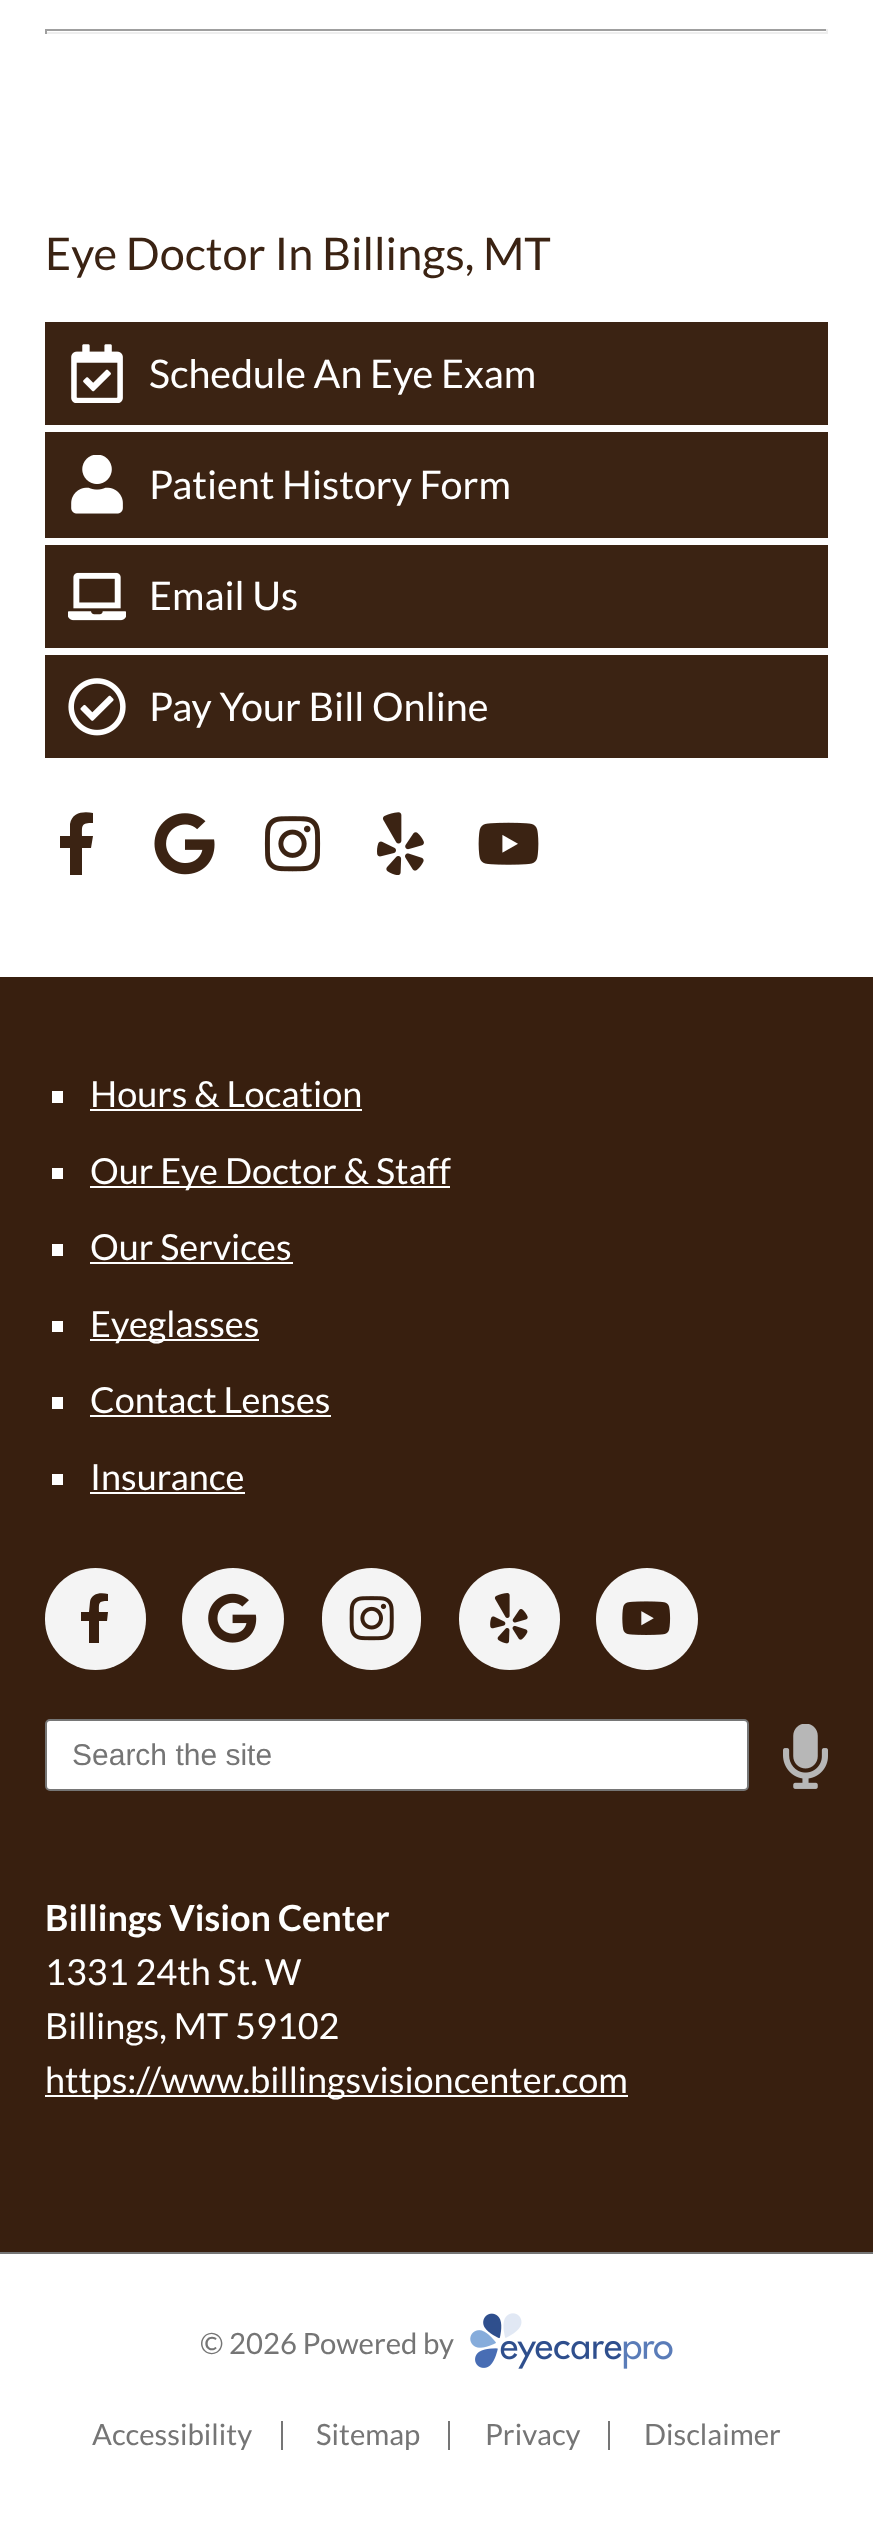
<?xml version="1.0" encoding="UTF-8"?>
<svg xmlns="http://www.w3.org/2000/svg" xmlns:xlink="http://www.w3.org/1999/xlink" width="873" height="2547">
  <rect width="100%" height="100%" fill="#ffffff" />
  <rect x="45" y="29" width="783" height="2" fill="#9f9f9f" />
  <rect x="826" y="29" width="2" height="5" fill="#eeeeee" />
  <rect x="45" y="32" width="783" height="2" fill="#eeeeee" />
  <rect x="45" y="29" width="2" height="5" fill="#9f9f9f" />
  <rect x="45" y="322" width="783" height="103" fill="#3b2313" />
  <image x="71" y="344" width="52" height="59" xlink:href="image1.png" />
  <rect x="45" y="432" width="783" height="106" fill="#3b2313" />
  <image x="71" y="455" width="52" height="59" xlink:href="image2.png" />
  <rect x="45" y="545" width="783" height="103" fill="#3b2313" />
  <image x="68" y="572" width="58" height="49" xlink:href="image3.png" />
  <rect x="45" y="655" width="783" height="103" fill="#3b2313" />
  <image x="68" y="678" width="58" height="58" xlink:href="image4.png" />
  <path d="M 91 848 l 2 -12 h -11 c 0 -11 -1 -13 11 -13 v -10 c -9 -2 -21 -1 -23 11 v 12 h -10 v 12 h 10 v 27 h 12 v -27 z" fill="#3b2313" />
  <image x="154" y="813" width="61" height="62" xlink:href="image5.png" />
  <image x="264" y="816" width="57" height="56" xlink:href="image6.png" />
  <image x="377" y="812" width="47" height="63" xlink:href="image7.png" />
  <image x="478" y="822" width="61" height="43" xlink:href="image8.png" />
  <rect y="977" width="873" height="1275" fill="#381f0f" />
  <rect x="52" y="1091" width="11" height="12" fill="#ffffff" />
  <rect x="90" y="1109" width="272" height="2" fill="#ffffff" />
  <rect x="52" y="1168" width="11" height="11" fill="#ffffff" />
  <rect x="90" y="1186" width="360" height="2" fill="#ffffff" />
  <rect x="52" y="1244" width="11" height="12" fill="#ffffff" />
  <rect x="90" y="1262" width="203" height="2" fill="#ffffff" />
  <rect x="52" y="1321" width="11" height="11" fill="#ffffff" />
  <rect x="90" y="1339" width="169" height="2" fill="#ffffff" />
  <rect x="52" y="1397" width="11" height="12" fill="#ffffff" />
  <rect x="90" y="1415" width="241" height="2" fill="#ffffff" />
  <rect x="52" y="1474" width="11" height="11" fill="#ffffff" />
  <rect x="90" y="1492" width="155" height="2" fill="#ffffff" />
  <rect x="45" y="1568" width="101" height="102" rx="50.5" fill="#f4f4f4" />
  <path d="M 107 1621 l 1 -9 h -9 c 0 -9 -1 -11 9 -11 v -7 c -7 -2 -17 -1 -18 8 l -1 10 h -8 v 9 h 8 v 22 h 10 v -22 z" fill="#381f0f" />
  <circle cx="233" cy="1619" r="51" fill="#f4f4f4" />
  <image x="208" y="1593" width="49" height="50" xlink:href="image9.png" />
  <rect x="322" y="1568" width="99" height="102" rx="49.5" fill="#f4f4f4" />
  <image x="349" y="1596" width="45" height="45" xlink:href="image10.png" />
  <rect x="459" y="1568" width="101" height="102" rx="50.5" fill="#f4f4f4" />
  <image x="490" y="1593" width="38" height="51" xlink:href="image11.png" />
  <circle cx="647" cy="1619" r="51" fill="#f4f4f4" />
  <image x="622" y="1601" width="49" height="34" xlink:href="image12.png" />
  <rect x="46" y="1720" width="702" height="70" rx="4" fill="#ffffff" stroke="#767676" stroke-width="2" />
  <image x="783" y="1724" width="45" height="65" xlink:href="image13.png" />
  <rect x="45" y="2095" width="583" height="2" fill="#ffffff" />
  <rect y="2252" width="873" height="2" fill="#757575" />
  <image x="470" y="2313" width="203" height="56" xlink:href="image14.png" />
  <rect x="281" y="2421" width="2" height="29" fill="#757575" />
  <rect x="448" y="2421" width="2" height="29" fill="#757575" />
  <rect x="608" y="2421" width="2" height="29" fill="#757575" />
  <text x="45" y="270" style="font-family: Lato; font-size: 45px; fill: #3b2313">Eye Doctor In Billings, MT</text>
  <text x="149" y="388" style="font-family: Lato; font-size: 39.5px; fill: #ffffff">Schedule An Eye Exam</text>
  <text x="149" y="499" style="font-family: Lato; font-size: 39.5px; fill: #ffffff">Patient History Form</text>
  <text x="149" y="610" style="font-family: Lato; font-size: 39.5px; fill: #ffffff">Email Us</text>
  <text x="149" y="721" style="font-family: Lato; font-size: 39.5px; fill: #ffffff">Pay Your Bill Online</text>
  <text x="90" y="1107" style="font-family: Lato; font-size: 36px; fill: #ffffff">Hours &amp; Location</text>
  <text x="90" y="1184" style="font-family: Lato; font-size: 36px; fill: #ffffff">Our Eye Doctor &amp; Staff</text>
  <text x="90" y="1260" style="font-family: Lato; font-size: 36px; fill: #ffffff">Our Services</text>
  <text x="90" y="1337" style="font-family: Lato; font-size: 36px; fill: #ffffff">Eyeglasses</text>
  <text x="90" y="1413" style="font-family: Lato; font-size: 36px; fill: #ffffff">Contact Lenses</text>
  <text x="90" y="1490" style="font-family: Lato; font-size: 36px; fill: #ffffff">Insurance</text>
  <text x="72" y="1765" style="font-family: Liberation Sans; font-size: 30px; fill: #757575">Search the site</text>
  <text x="45" y="1931" style="font-family: Lato; font-size: 36px; font-weight: bold; fill: #ffffff">Billings Vision Center</text>
  <text x="45" y="1985" style="font-family: Lato; font-size: 36px; fill: #ffffff">1331 24th St. W</text>
  <text x="45" y="2039" style="font-family: Lato; font-size: 36px; fill: #ffffff">Billings, MT 59102</text>
  <text x="45" y="2093" style="font-family: Lato; font-size: 36px; fill: #ffffff">https://www.billingsvisioncenter.com</text>
  <text x="200" y="2354" style="font-family: Lato; font-size: 29.25px; fill: #757575">© 2026 Powered by</text>
  <text x="92" y="2445" style="font-family: Lato; font-size: 29.25px; fill: #757575">Accessibility</text>
  <text x="316" y="2445" style="font-family: Lato; font-size: 29.25px; fill: #757575">Sitemap</text>
  <text x="485" y="2445" style="font-family: Lato; font-size: 29.25px; fill: #757575">Privacy</text>
  <text x="644" y="2445" style="font-family: Lato; font-size: 29.25px; fill: #757575">Disclaimer</text>
</svg>
